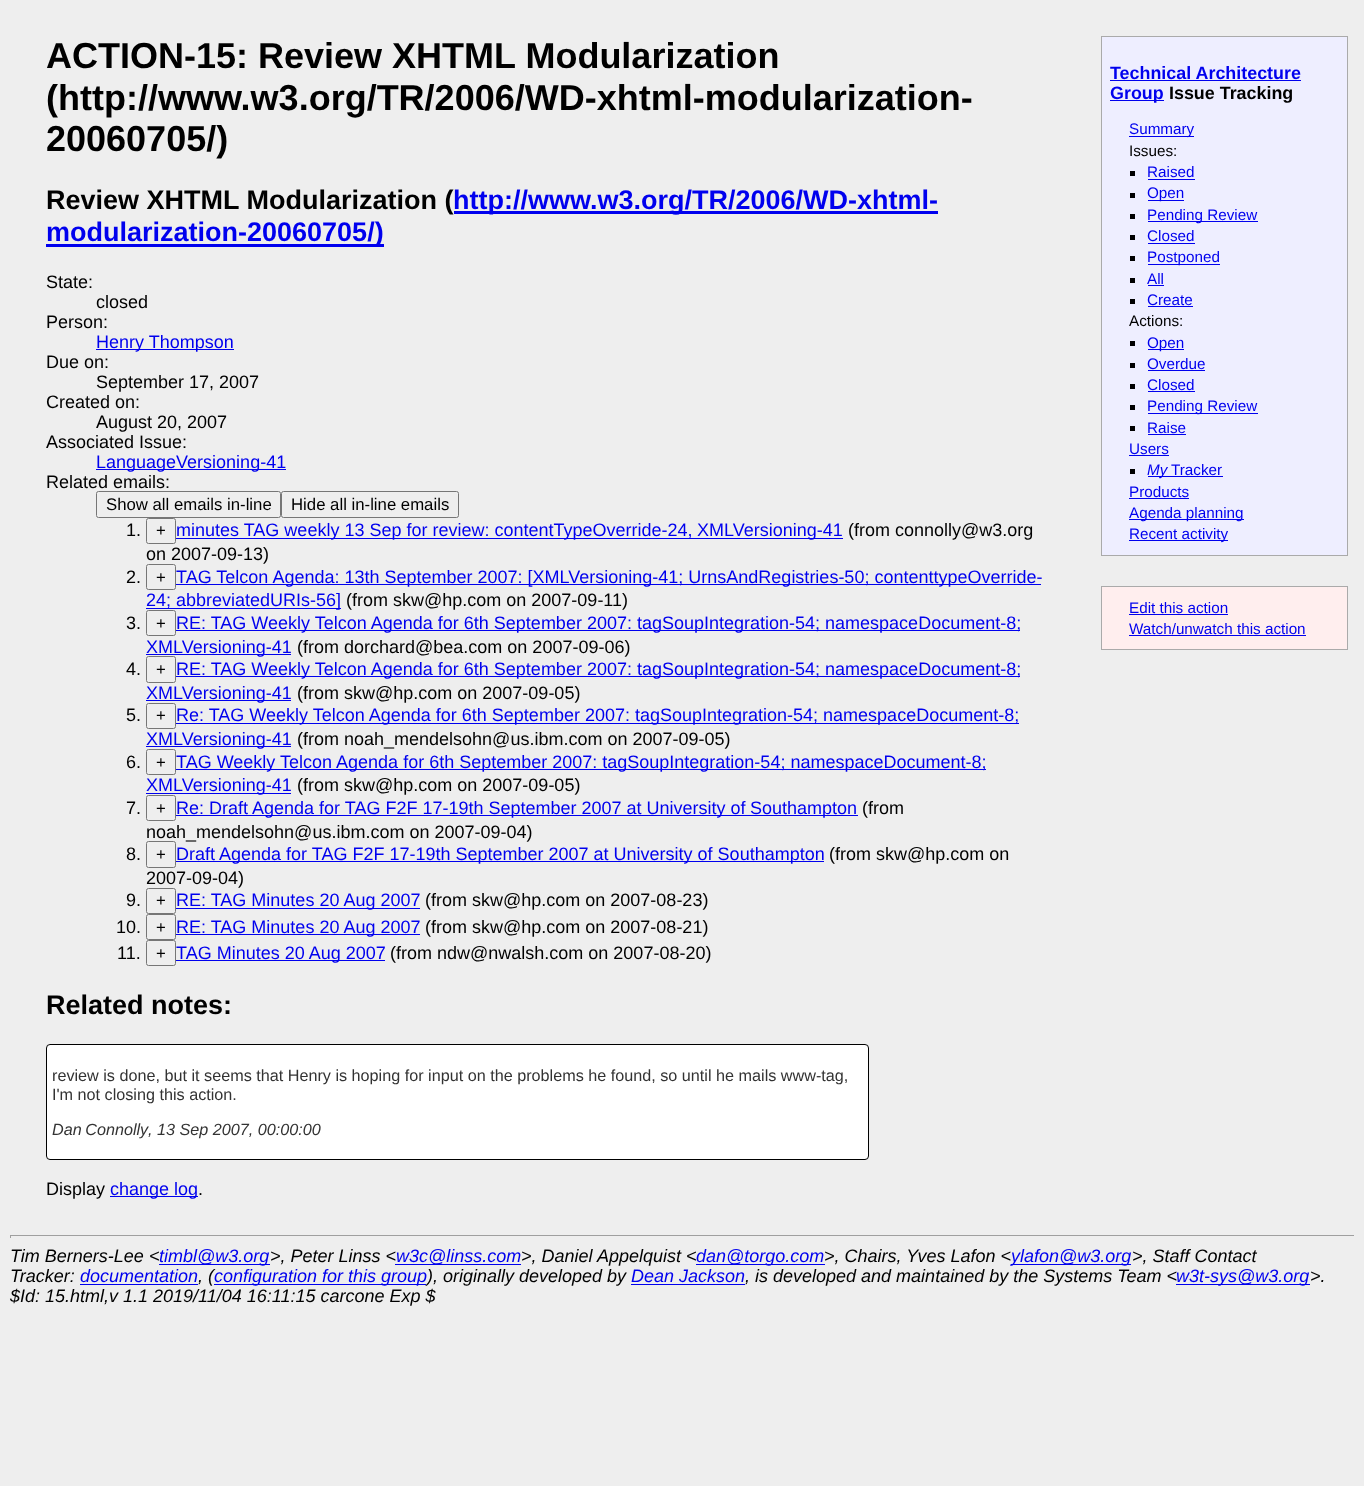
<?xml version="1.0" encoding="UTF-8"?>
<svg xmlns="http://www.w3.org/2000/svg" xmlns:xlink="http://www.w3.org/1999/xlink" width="1364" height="1486">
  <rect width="100%" height="100%" fill="#eeeeee" />
  <rect x="454" y="211" width="484" height="3" fill="#0000ee" />
  <rect x="46" y="244" width="338" height="3" fill="#0000ee" />
  <rect x="96" y="349" width="138" height="1" fill="#0000ee" />
  <rect x="96" y="469" width="190" height="1" fill="#0000ee" />
  <rect x="96.5" y="491.5" width="184" height="26" rx="2" fill="none" stroke="#767676" />
  <rect x="281.5" y="491.5" width="177" height="26" rx="2" fill="none" stroke="#767676" />
  <rect x="146.5" y="518.5" width="29" height="25" rx="2" fill="none" stroke="#767676" />
  <rect x="176" y="538" width="667" height="1" fill="#0000ee" />
  <rect x="146.5" y="564.5" width="29" height="25" rx="2" fill="none" stroke="#767676" />
  <rect x="176" y="584" width="865" height="1" fill="#0000ee" />
  <rect x="146" y="608" width="195" height="1" fill="#0000ee" />
  <rect x="146.5" y="610.5" width="29" height="25" rx="2" fill="none" stroke="#767676" />
  <rect x="176" y="630" width="844" height="1" fill="#0000ee" />
  <rect x="146" y="654" width="145" height="1" fill="#0000ee" />
  <rect x="176" y="676" width="844" height="1" fill="#0000ee" />
  <rect x="146" y="700" width="145" height="1" fill="#0000ee" />
  <rect x="146.5" y="703.5" width="29" height="25" rx="2" fill="none" stroke="#767676" />
  <rect x="176" y="723" width="843" height="1" fill="#0000ee" />
  <rect x="146" y="746" width="145" height="1" fill="#0000ee" />
  <rect x="146.5" y="749.5" width="29" height="25" rx="2" fill="none" stroke="#767676" />
  <rect x="176" y="769" width="810" height="1" fill="#0000ee" />
  <rect x="146" y="793" width="145" height="1" fill="#0000ee" />
  <rect x="146.5" y="795.5" width="29" height="25" rx="2" fill="none" stroke="#767676" />
  <rect x="176" y="815" width="682" height="1" fill="#0000ee" />
  <rect x="176" y="861" width="648" height="1" fill="#0000ee" />
  <rect x="146.5" y="888.5" width="29" height="25" rx="2" fill="none" stroke="#767676" />
  <rect x="176" y="908" width="244" height="1" fill="#0000ee" />
  <rect x="146.5" y="914.5" width="29" height="25" rx="2" fill="none" stroke="#767676" />
  <rect x="176" y="934" width="244" height="1" fill="#0000ee" />
  <rect x="146.5" y="940.5" width="29" height="25" rx="2" fill="none" stroke="#767676" />
  <rect x="176" y="960" width="209" height="1" fill="#0000ee" />
  <rect x="46.5" y="1044.5" width="822" height="115" rx="3.5" fill="#ffffff" stroke="#000000" />
  <rect x="110" y="1196" width="88" height="1" fill="#0000ee" />
  <rect x="1101.5" y="36.5" width="246" height="519" fill="#eeeeff" stroke="#aaaaaa" />
  <rect x="1110" y="80" width="191" height="1" fill="#0000ee" />
  <rect x="1110" y="100" width="54" height="1" fill="#0000ee" />
  <rect x="1129" y="136" width="65" height="1" fill="#0000ee" />
  <rect x="1130" y="171" width="5" height="5" fill="#000000" />
  <rect x="1148" y="179" width="47" height="1" fill="#0000ee" />
  <rect x="1130" y="193" width="5" height="5" fill="#000000" />
  <rect x="1148" y="200" width="36" height="1" fill="#0000ee" />
  <rect x="1130" y="214" width="5" height="5" fill="#000000" />
  <rect x="1148" y="221" width="110" height="1" fill="#0000ee" />
  <rect x="1130" y="235" width="5" height="5" fill="#000000" />
  <rect x="1148" y="243" width="47" height="1" fill="#0000ee" />
  <rect x="1130" y="256" width="5" height="5" fill="#000000" />
  <rect x="1148" y="264" width="72" height="1" fill="#0000ee" />
  <rect x="1130" y="278" width="5" height="5" fill="#000000" />
  <rect x="1148" y="285" width="16" height="1" fill="#0000ee" />
  <rect x="1130" y="299" width="5" height="5" fill="#000000" />
  <rect x="1148" y="306" width="45" height="1" fill="#0000ee" />
  <rect x="1130" y="341" width="5" height="5" fill="#000000" />
  <rect x="1148" y="349" width="36" height="1" fill="#0000ee" />
  <rect x="1130" y="363" width="5" height="5" fill="#000000" />
  <rect x="1148" y="370" width="57" height="1" fill="#0000ee" />
  <rect x="1130" y="384" width="5" height="5" fill="#000000" />
  <rect x="1148" y="391" width="47" height="1" fill="#0000ee" />
  <rect x="1130" y="405" width="5" height="5" fill="#000000" />
  <rect x="1148" y="413" width="110" height="1" fill="#0000ee" />
  <rect x="1130" y="426" width="5" height="5" fill="#000000" />
  <rect x="1148" y="434" width="38" height="1" fill="#0000ee" />
  <rect x="1129" y="455" width="40" height="1" fill="#0000ee" />
  <rect x="1130" y="469" width="5" height="5" fill="#000000" />
  <rect x="1148" y="476" width="20" height="1" fill="#0000ee" />
  <rect x="1168" y="476" width="55" height="1" fill="#0000ee" />
  <rect x="1129" y="498" width="60" height="1" fill="#0000ee" />
  <rect x="1129" y="519" width="115" height="1" fill="#0000ee" />
  <rect x="1129" y="540" width="99" height="1" fill="#0000ee" />
  <rect x="1101.5" y="586.5" width="246" height="63" fill="#ffeeee" stroke="#aaaaaa" />
  <rect x="1129" y="614" width="99" height="1" fill="#0000ee" />
  <rect x="1129" y="635" width="177" height="1" fill="#0000ee" />
  <rect x="10" y="1235" width="1345" height="1" fill="#9f9f9f" />
  <rect x="1354" y="1235" width="1" height="3" fill="#eeeeee" />
  <rect x="10" y="1235" width="1" height="3" fill="#9f9f9f" />
  <rect x="159" y="1264" width="111" height="1" fill="#0000ee" />
  <rect x="696" y="1264" width="129" height="1" fill="#0000ee" />
  <rect x="1011" y="1264" width="120" height="1" fill="#0000ee" />
  <rect x="80" y="1284" width="118" height="1" fill="#0000ee" />
  <rect x="631" y="1284" width="114" height="1" fill="#0000ee" />
  <text x="46" y="68" style="font-family: Liberation Sans; font-size: 36px; font-weight: bold; fill: #000000">ACTION-15: Review XHTML Modularization</text>
  <text x="46" y="110" style="font-family: Liberation Sans; font-size: 36px; font-weight: bold; fill: #000000">(http://www.w3.org/TR/2006/WD-xhtml-modularization-</text>
  <text x="46" y="151" style="font-family: Liberation Sans; font-size: 36px; font-weight: bold; fill: #000000">20060705/)</text>
  <text x="46" y="209" style="font-family: Liberation Sans; font-size: 27px; font-weight: bold; fill: #000000">Review XHTML Modularization (</text>
  <text x="453" y="209" style="font-family: Liberation Sans; font-size: 27px; font-weight: bold; fill: #0000ee">http://www.w3.org/TR/2006/WD-xhtml-</text>
  <text x="46" y="241" style="font-family: Liberation Sans; font-size: 27px; font-weight: bold; fill: #0000ee">modularization-20060705/)</text>
  <text x="46" y="288" style="font-family: Liberation Sans; font-size: 18px; fill: #000000">State:</text>
  <text x="96" y="308" style="font-family: Liberation Sans; font-size: 18px; fill: #000000">closed</text>
  <text x="46" y="328" style="font-family: Liberation Sans; font-size: 18px; fill: #000000">Person:</text>
  <text x="96" y="348" style="font-family: Liberation Sans; font-size: 18px; fill: #0000ee">Henry Thompson</text>
  <text x="46" y="368" style="font-family: Liberation Sans; font-size: 18px; fill: #000000">Due on:</text>
  <text x="96" y="388" style="font-family: Liberation Sans; font-size: 18px; fill: #000000">September 17, 2007</text>
  <text x="46" y="408" style="font-family: Liberation Sans; font-size: 18px; fill: #000000">Created on:</text>
  <text x="96" y="428" style="font-family: Liberation Sans; font-size: 18px; fill: #000000">August 20, 2007</text>
  <text x="46" y="448" style="font-family: Liberation Sans; font-size: 18px; fill: #000000">Associated Issue:</text>
  <text x="96" y="468" style="font-family: Liberation Sans; font-size: 18px; fill: #0000ee">LanguageVersioning-41</text>
  <text x="46" y="488" style="font-family: Liberation Sans; font-size: 18px; fill: #000000">Related emails:</text>
  <text x="106" y="510" style="font-family: Liberation Sans; font-size: 16.75px; fill: #000000">Show all emails in-line</text>
  <text x="291" y="510" style="font-family: Liberation Sans; font-size: 16.75px; fill: #000000">Hide all in-line emails</text>
  <text x="126" y="536" style="font-family: Liberation Sans; font-size: 18px; fill: #000000">1.</text>
  <text x="156" y="536" style="font-family: Liberation Sans; font-size: 16.75px; fill: #000000">+</text>
  <text x="176" y="536" style="font-family: Liberation Sans; font-size: 18px; fill: #0000ee">minutes TAG weekly 13 Sep for review: contentTypeOverride-24,</text>
  <text x="697" y="536" style="font-family: Liberation Sans; font-size: 18px; fill: #0000ee">XMLVersioning-41</text>
  <text x="848" y="536" style="font-family: Liberation Sans; font-size: 18px; fill: #000000">(from connolly@w3.org</text>
  <text x="146" y="560" style="font-family: Liberation Sans; font-size: 18px; fill: #000000">on 2007-09-13)</text>
  <text x="126" y="583" style="font-family: Liberation Sans; font-size: 18px; fill: #000000">2.</text>
  <text x="156" y="583" style="font-family: Liberation Sans; font-size: 16.75px; fill: #000000">+</text>
  <text x="176" y="583" style="font-family: Liberation Sans; font-size: 18px; fill: #0000ee">TAG Telcon Agenda: 13th September 2007: [XMLVersioning-41; UrnsAndRegistries-50; contenttypeOverride-</text>
  <text x="146" y="606" style="font-family: Liberation Sans; font-size: 18px; fill: #0000ee">24; abbreviatedURIs-56]</text>
  <text x="346" y="606" style="font-family: Liberation Sans; font-size: 18px; fill: #000000">(from skw@hp.com on 2007-09-11)</text>
  <text x="126" y="629" style="font-family: Liberation Sans; font-size: 18px; fill: #000000">3.</text>
  <text x="156" y="629" style="font-family: Liberation Sans; font-size: 16.75px; fill: #000000">+</text>
  <text x="176" y="629" style="font-family: Liberation Sans; font-size: 18px; fill: #0000ee">RE: TAG Weekly Telcon Agenda for 6th September 2007: tagSoupIntegration-54; namespaceDocument-8;</text>
  <text x="146" y="653" style="font-family: Liberation Sans; font-size: 18px; fill: #0000ee">XMLVersioning-41</text>
  <text x="297" y="653" style="font-family: Liberation Sans; font-size: 18px; fill: #000000">(from dorchard@bea.com on 2007-09-06)</text>
  <text x="126" y="675" style="font-family: Liberation Sans; font-size: 18px; fill: #000000">4.</text>
  <rect x="146.5" y="656.5" width="29" height="26" rx="2" fill="none" stroke="#767676" />
  <text x="156" y="675" style="font-family: Liberation Sans; font-size: 16.75px; fill: #000000">+</text>
  <text x="176" y="675" style="font-family: Liberation Sans; font-size: 18px; fill: #0000ee">RE: TAG Weekly Telcon Agenda for 6th September 2007: tagSoupIntegration-54; namespaceDocument-8;</text>
  <text x="146" y="699" style="font-family: Liberation Sans; font-size: 18px; fill: #0000ee">XMLVersioning-41</text>
  <text x="297" y="699" style="font-family: Liberation Sans; font-size: 18px; fill: #000000">(from skw@hp.com on 2007-09-05)</text>
  <text x="126" y="721" style="font-family: Liberation Sans; font-size: 18px; fill: #000000">5.</text>
  <text x="156" y="721" style="font-family: Liberation Sans; font-size: 16.75px; fill: #000000">+</text>
  <text x="176" y="721" style="font-family: Liberation Sans; font-size: 18px; fill: #0000ee">Re: TAG Weekly Telcon Agenda for 6th September 2007: tagSoupIntegration-54; namespaceDocument-8;</text>
  <text x="146" y="745" style="font-family: Liberation Sans; font-size: 18px; fill: #0000ee">XMLVersioning-41</text>
  <text x="297" y="745" style="font-family: Liberation Sans; font-size: 18px; fill: #000000">(from noah_mendelsohn@us.ibm.com on 2007-09-05)</text>
  <text x="126" y="768" style="font-family: Liberation Sans; font-size: 18px; fill: #000000">6.</text>
  <text x="156" y="768" style="font-family: Liberation Sans; font-size: 16.75px; fill: #000000">+</text>
  <text x="176" y="768" style="font-family: Liberation Sans; font-size: 18px; fill: #0000ee">TAG Weekly Telcon Agenda for 6th September 2007: tagSoupIntegration-54; namespaceDocument-8;</text>
  <text x="146" y="791" style="font-family: Liberation Sans; font-size: 18px; fill: #0000ee">XMLVersioning-41</text>
  <text x="297" y="791" style="font-family: Liberation Sans; font-size: 18px; fill: #000000">(from skw@hp.com on 2007-09-05)</text>
  <text x="126" y="814" style="font-family: Liberation Sans; font-size: 18px; fill: #000000">7.</text>
  <text x="156" y="814" style="font-family: Liberation Sans; font-size: 16.75px; fill: #000000">+</text>
  <text x="176" y="814" style="font-family: Liberation Sans; font-size: 18px; fill: #0000ee">Re: Draft Agenda for TAG F2F 17-19th September 2007 at University of</text>
  <text x="750" y="814" style="font-family: Liberation Sans; font-size: 18px; fill: #0000ee">Southampton</text>
  <text x="862" y="814" style="font-family: Liberation Sans; font-size: 18px; fill: #000000">(from</text>
  <text x="146" y="838" style="font-family: Liberation Sans; font-size: 18px; fill: #000000">noah_mendelsohn@us.ibm.com on 2007-09-04)</text>
  <text x="126" y="860" style="font-family: Liberation Sans; font-size: 18px; fill: #000000">8.</text>
  <rect x="146.5" y="841.5" width="29" height="26" rx="2" fill="none" stroke="#767676" />
  <text x="156" y="860" style="font-family: Liberation Sans; font-size: 16.75px; fill: #000000">+</text>
  <text x="176" y="860" style="font-family: Liberation Sans; font-size: 18px; fill: #0000ee">Draft Agenda for TAG F2F 17-19th September 2007 at University of Southampton</text>
  <text x="829" y="860" style="font-family: Liberation Sans; font-size: 18px; fill: #000000">(from skw@hp.com on</text>
  <text x="146" y="884" style="font-family: Liberation Sans; font-size: 18px; fill: #000000">2007-09-04)</text>
  <text x="126" y="906" style="font-family: Liberation Sans; font-size: 18px; fill: #000000">9.</text>
  <text x="156" y="906" style="font-family: Liberation Sans; font-size: 16.75px; fill: #000000">+</text>
  <text x="176" y="906" style="font-family: Liberation Sans; font-size: 18px; fill: #0000ee">RE: TAG Minutes 20 Aug 2007</text>
  <text x="425" y="906" style="font-family: Liberation Sans; font-size: 18px; fill: #000000">(from skw@hp.com on 2007-08-23)</text>
  <text x="116" y="933" style="font-family: Liberation Sans; font-size: 18px; fill: #000000">10.</text>
  <text x="156" y="933" style="font-family: Liberation Sans; font-size: 16.75px; fill: #000000">+</text>
  <text x="176" y="933" style="font-family: Liberation Sans; font-size: 18px; fill: #0000ee">RE: TAG Minutes 20 Aug 2007</text>
  <text x="425" y="933" style="font-family: Liberation Sans; font-size: 18px; fill: #000000">(from skw@hp.com on 2007-08-21)</text>
  <text x="117" y="959" style="font-family: Liberation Sans; font-size: 18px; fill: #000000">11.</text>
  <text x="156" y="959" style="font-family: Liberation Sans; font-size: 16.75px; fill: #000000">+</text>
  <text x="176" y="959" style="font-family: Liberation Sans; font-size: 18px; fill: #0000ee">TAG Minutes 20 Aug 2007</text>
  <text x="390" y="959" style="font-family: Liberation Sans; font-size: 18px; fill: #000000">(from ndw@nwalsh.com on 2007-08-20)</text>
  <text x="46" y="1014" style="font-family: Liberation Sans; font-size: 27px; font-weight: bold; fill: #000000">Related notes:</text>
  <text x="52" y="1081" style="font-family: Liberation Sans; font-size: 16.2px; fill: #333333">review is done, but it seems that Henry is hoping for input on the problems he found, so until he mails www-tag,</text>
  <text x="52" y="1100" style="font-family: Liberation Sans; font-size: 16.2px; fill: #333333">I'm not closing this action.</text>
  <text x="52" y="1135" word-spacing="-1" style="font-family: Liberation Sans; font-size: 16.2px; font-style: italic; fill: #333333">Dan Connolly</text>
  <text x="148" y="1135" style="font-family: Liberation Sans; font-size: 16.2px; font-style: italic; fill: #333333">, 13 Sep 2007, 00:00:00</text>
  <text x="46" y="1195" style="font-family: Liberation Sans; font-size: 18px; fill: #000000">Display</text>
  <text x="110" y="1195" style="font-family: Liberation Sans; font-size: 18px; fill: #0000ee">change log</text>
  <text x="198" y="1195" style="font-family: Liberation Sans; font-size: 18px; fill: #000000">.</text>
  <text x="1110" y="79" style="font-family: Liberation Sans; font-size: 17.9px; font-weight: bold; fill: #0000ee">Technical Architecture</text>
  <text x="1110" y="99" style="font-family: Liberation Sans; font-size: 17.9px; font-weight: bold; fill: #0000ee">Group</text>
  <text x="1169" y="99" style="font-family: Liberation Sans; font-size: 17.9px; font-weight: bold; fill: #000000">Issue Tracking</text>
  <text x="1129" y="134" style="font-family: Liberation Sans; font-size: 15.25px; fill: #0000ee">Summary</text>
  <text x="1129" y="156" style="font-family: Liberation Sans; font-size: 15.25px; fill: #000000">Issues:</text>
  <text x="1147" y="177" style="font-family: Liberation Sans; font-size: 15.25px; fill: #0000ee">Raised</text>
  <text x="1147" y="198" style="font-family: Liberation Sans; font-size: 15.25px; fill: #0000ee">Open</text>
  <text x="1147" y="220" style="font-family: Liberation Sans; font-size: 15.25px; fill: #0000ee">Pending Review</text>
  <text x="1147" y="241" style="font-family: Liberation Sans; font-size: 15.25px; fill: #0000ee">Closed</text>
  <text x="1147" y="262" style="font-family: Liberation Sans; font-size: 15.25px; fill: #0000ee">Postponed</text>
  <text x="1147" y="284" style="font-family: Liberation Sans; font-size: 15.25px; fill: #0000ee">All</text>
  <text x="1147" y="305" style="font-family: Liberation Sans; font-size: 15.25px; fill: #0000ee">Create</text>
  <text x="1129" y="326" style="font-family: Liberation Sans; font-size: 15.25px; fill: #000000">Actions:</text>
  <text x="1147" y="348" style="font-family: Liberation Sans; font-size: 15.25px; fill: #0000ee">Open</text>
  <text x="1147" y="369" style="font-family: Liberation Sans; font-size: 15.25px; fill: #0000ee">Overdue</text>
  <text x="1147" y="390" style="font-family: Liberation Sans; font-size: 15.25px; fill: #0000ee">Closed</text>
  <text x="1147" y="411" style="font-family: Liberation Sans; font-size: 15.25px; fill: #0000ee">Pending Review</text>
  <text x="1147" y="433" style="font-family: Liberation Sans; font-size: 15.25px; fill: #0000ee">Raise</text>
  <text x="1129" y="454" style="font-family: Liberation Sans; font-size: 15.25px; fill: #0000ee">Users</text>
  <text x="1147" y="475" style="font-family: Liberation Sans; font-size: 15.25px; font-style: italic; fill: #0000ee">My</text>
  <text x="1171" y="475" style="font-family: Liberation Sans; font-size: 15.25px; fill: #0000ee">Tracker</text>
  <text x="1129" y="497" style="font-family: Liberation Sans; font-size: 15.25px; fill: #0000ee">Products</text>
  <text x="1129" y="518" style="font-family: Liberation Sans; font-size: 15.25px; fill: #0000ee">Agenda planning</text>
  <text x="1129" y="539" style="font-family: Liberation Sans; font-size: 15.25px; fill: #0000ee">Recent activity</text>
  <text x="1129" y="613" style="font-family: Liberation Sans; font-size: 15.25px; fill: #0000ee">Edit this action</text>
  <text x="1129" y="634" style="font-family: Liberation Sans; font-size: 15.25px; fill: #0000ee">Watch/unwatch this action</text>
  <text x="10" y="1262" style="font-family: Liberation Sans; font-size: 18px; font-style: italic; fill: #000000">Tim Berners-Lee &lt;</text>
  <text x="159" y="1262" style="font-family: Liberation Sans; font-size: 18px; font-style: italic; fill: #0000ee">timbl@w3.org</text>
  <text x="270" y="1262" style="font-family: Liberation Sans; font-size: 18px; font-style: italic; fill: #000000">&gt;, Peter Linss &lt;</text>
  <rect x="395" y="1264" width="126" height="1" fill="#0000ee" />
  <text x="396" y="1262" style="font-family: Liberation Sans; font-size: 18px; font-style: italic; fill: #0000ee">w3c@linss.com</text>
  <text x="521" y="1262" style="font-family: Liberation Sans; font-size: 18px; font-style: italic; fill: #000000">&gt;, Daniel Appelquist &lt;</text>
  <text x="696" y="1262" style="font-family: Liberation Sans; font-size: 18px; font-style: italic; fill: #0000ee">dan@torgo.com</text>
  <text x="824" y="1262" style="font-family: Liberation Sans; font-size: 18px; font-style: italic; fill: #000000">&gt;, Chairs, Yves Lafon &lt;</text>
  <text x="1011" y="1262" style="font-family: Liberation Sans; font-size: 18px; font-style: italic; fill: #0000ee">ylafon@w3.org</text>
  <text x="1132" y="1262" style="font-family: Liberation Sans; font-size: 18px; font-style: italic; fill: #000000">&gt;, Staff Contact</text>
  <text x="10" y="1282" style="font-family: Liberation Sans; font-size: 18px; font-style: italic; fill: #000000">Tracker:</text>
  <text x="80" y="1282" style="font-family: Liberation Sans; font-size: 18px; font-style: italic; fill: #0000ee">documentation</text>
  <text x="198" y="1282" style="font-family: Liberation Sans; font-size: 18px; font-style: italic; fill: #000000">, (</text>
  <rect x="214" y="1284" width="212" height="1" fill="#0000ee" />
  <text x="214" y="1282" style="font-family: Liberation Sans; font-size: 18px; font-style: italic; fill: #0000ee">configuration for this group</text>
  <text x="427" y="1282" style="font-family: Liberation Sans; font-size: 18px; font-style: italic; fill: #000000">), originally developed by</text>
  <text x="631" y="1282" style="font-family: Liberation Sans; font-size: 18px; font-style: italic; fill: #0000ee">Dean Jackson</text>
  <text x="745" y="1282" style="font-family: Liberation Sans; font-size: 18px; font-style: italic; fill: #000000">, is developed and maintained by the Systems Team &lt;</text>
  <rect x="1176" y="1284" width="134" height="1" fill="#0000ee" />
  <text x="1176" y="1282" style="font-family: Liberation Sans; font-size: 18px; font-style: italic; fill: #0000ee">w3t-sys@w3.org</text>
  <text x="1310" y="1282" style="font-family: Liberation Sans; font-size: 18px; font-style: italic; fill: #000000">&gt;.</text>
  <text x="10" y="1302" style="font-family: Liberation Sans; font-size: 18px; font-style: italic; fill: #000000">$Id: 15.html,v 1.1 2019/11/04 16:11:15 carcone Exp $</text>
</svg>
